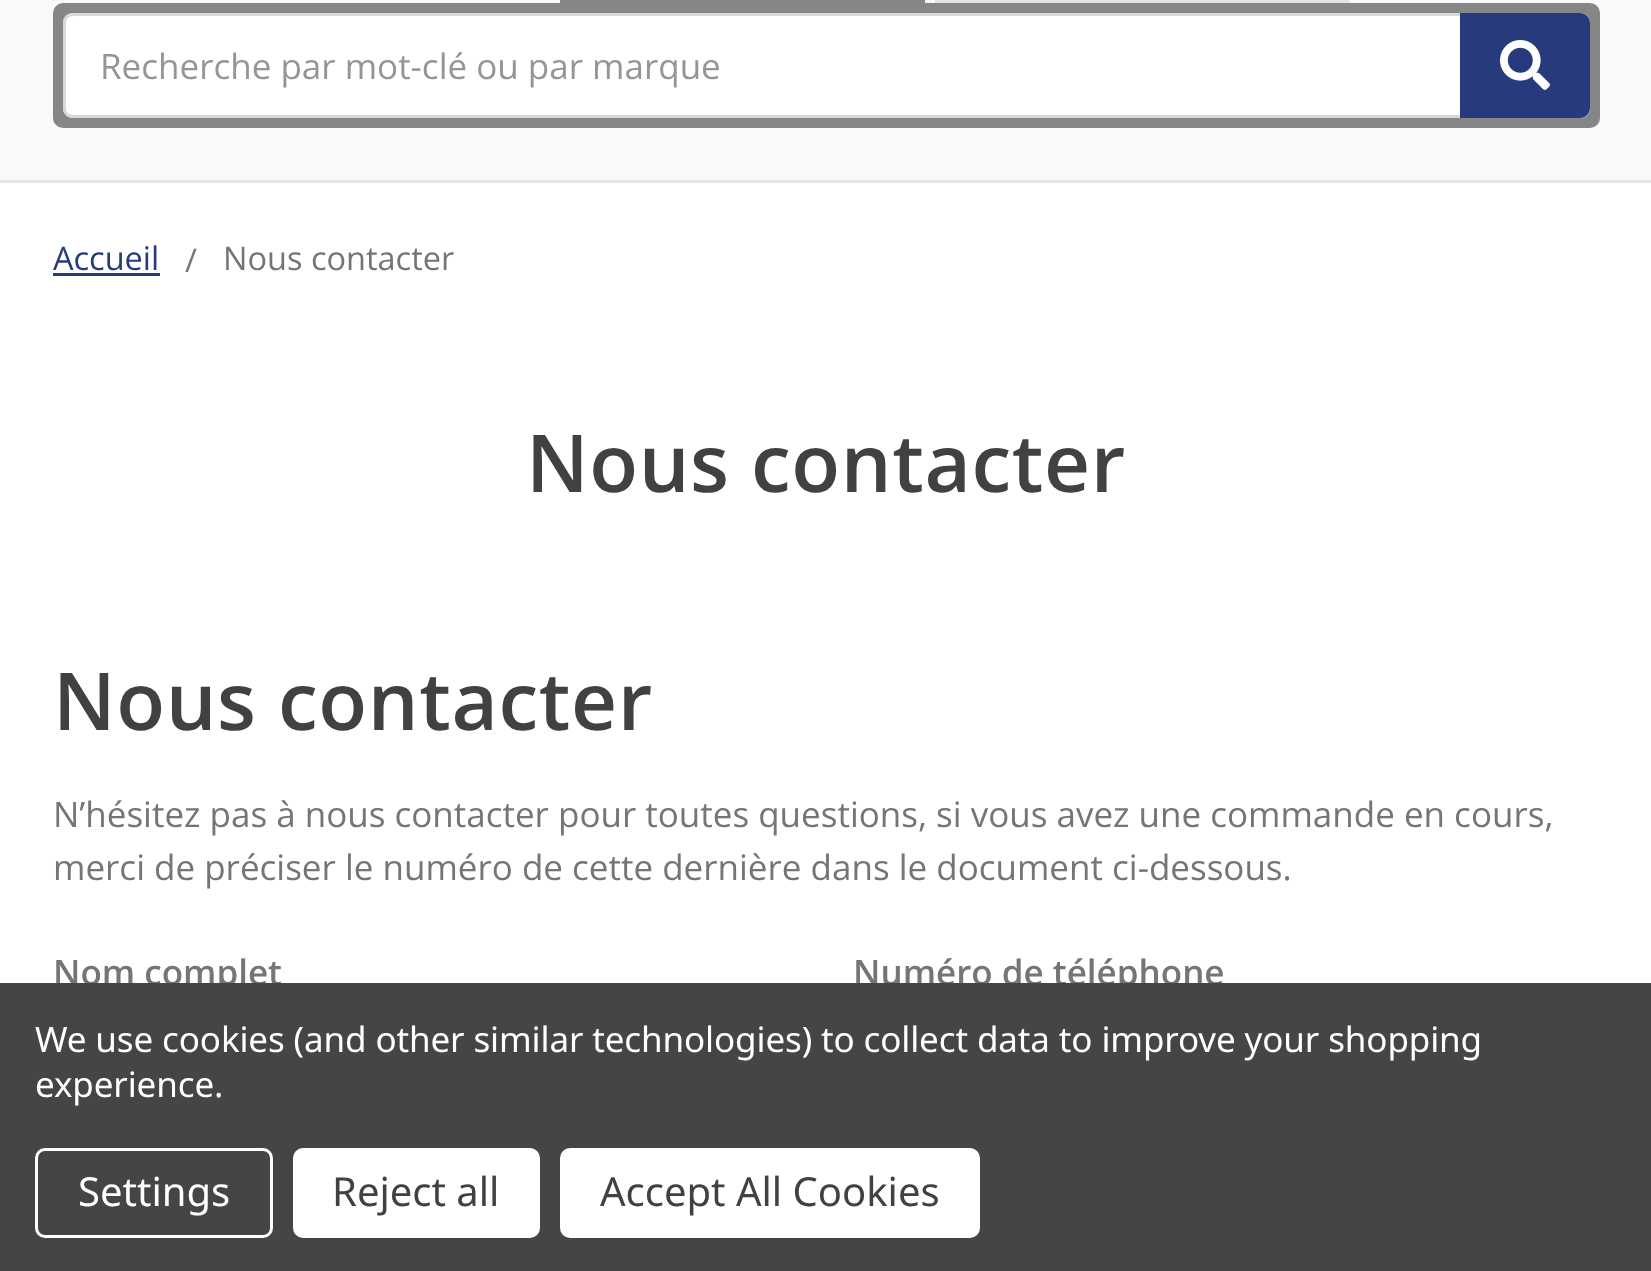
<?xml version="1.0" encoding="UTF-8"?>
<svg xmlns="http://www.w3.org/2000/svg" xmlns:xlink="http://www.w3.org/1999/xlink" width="1651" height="1271">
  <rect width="100%" height="100%" fill="#ffffff" />
  <rect width="1651" height="180" fill="#f9f9f9" />
  <rect y="180" width="1651" height="3" fill="#e5e5e5" />
  <rect x="53" y="3" width="1547" height="125" rx="10" fill="#868686" />
  <rect x="560" width="365" height="3" fill="#868686" />
  <rect x="935" width="415" height="3" fill="#e5e5e5" />
  <rect x="63" y="13" width="1527" height="105" rx="10" fill="#ffffff" />
  <path d="M 73 13 c -6 0 -10 4 -10 10 v 85 c 0 6 4 10 10 10 h 1507 c 6 0 10 -4 10 -10 v -85 c 0 -6 -4 -10 -10 -10 z m 0 3 c -4 0 -7 3 -7 7 v 85 c 0 4 3 7 7 7 h 1514 v -99 z" fill="#d9d9d9" fill-rule="evenodd" />
  <path d="M 1460 13 h 120 c 5.5 0 10 4.5 10 10 v 85 c 0 5.5 -4.5 10 -10 10 h -120 z" fill="#263a7d" />
  <image x="1500" y="40" width="50" height="50" xlink:href="image1.png" />
  <rect x="53" y="273" width="107" height="3" fill="#263a7d" />
  <text x="100" y="79" style="font-family: Open Sans; font-size: 35px; fill: #959595">Recherche par mot-clé ou par marque</text>
  <text x="53" y="270" style="font-family: Open Sans; font-size: 32.5px; fill: #263a7d">Accueil</text>
  <text x="185" y="272" style="font-family: Open Sans; font-size: 32.5px; fill: #757575">/</text>
  <text x="223" y="270" style="font-family: Open Sans; font-size: 32.5px; fill: #757575">Nous contacter</text>
  <text x="526" y="492" style="font-family: Open Sans; font-size: 80px; font-weight: 600; letter-spacing: 0.6px; fill: #414141">Nous contacter</text>
  <text x="53" y="730" style="font-family: Open Sans; font-size: 80px; font-weight: 600; letter-spacing: 0.6px; fill: #414141">Nous contacter</text>
  <text x="53" y="827" style="font-family: Open Sans; font-size: 35px; fill: #757575">N’hésitez pas à nous contacter pour toutes questions, si vous avez une commande en cours,</text>
  <text x="53" y="880" style="font-family: Open Sans; font-size: 35px; fill: #757575">merci de préciser le numéro de cette dernière dans le document ci-dessous.</text>
  <text x="53" y="985" style="font-family: Open Sans; font-size: 35px; font-weight: 600; fill: #757575">Nom complet</text>
  <text x="853" y="985" style="font-family: Open Sans; font-size: 35px; font-weight: 600; fill: #757575">Numéro de téléphone</text>
  <rect y="983" width="1651" height="288" fill="#454545" />
  <text x="35" y="1052" style="font-family: Noto Sans; font-size: 35px; letter-spacing: -0.12px; fill: #ffffff">We use cookies (and other similar technologies) to collect data to improve your shopping</text>
  <text x="35" y="1097" style="font-family: Noto Sans; font-size: 35px; letter-spacing: -0.12px; fill: #ffffff">experience.</text>
  <rect x="36.5" y="1149.5" width="235" height="87" rx="8.5" fill="none" stroke="#ffffff" stroke-width="3" />
  <text x="78" y="1206" style="font-family: Noto Sans; font-size: 40px; fill: #ffffff">Settings</text>
  <rect x="293" y="1148" width="247" height="90" rx="10" fill="#ffffff" />
  <text x="332" y="1206" style="font-family: Noto Sans; font-size: 40px; fill: #414141">Reject all</text>
  <rect x="560" y="1148" width="420" height="90" rx="10" fill="#ffffff" />
  <text x="600" y="1206" style="font-family: Noto Sans; font-size: 40px; fill: #414141">Accept All Cookies</text>
</svg>
